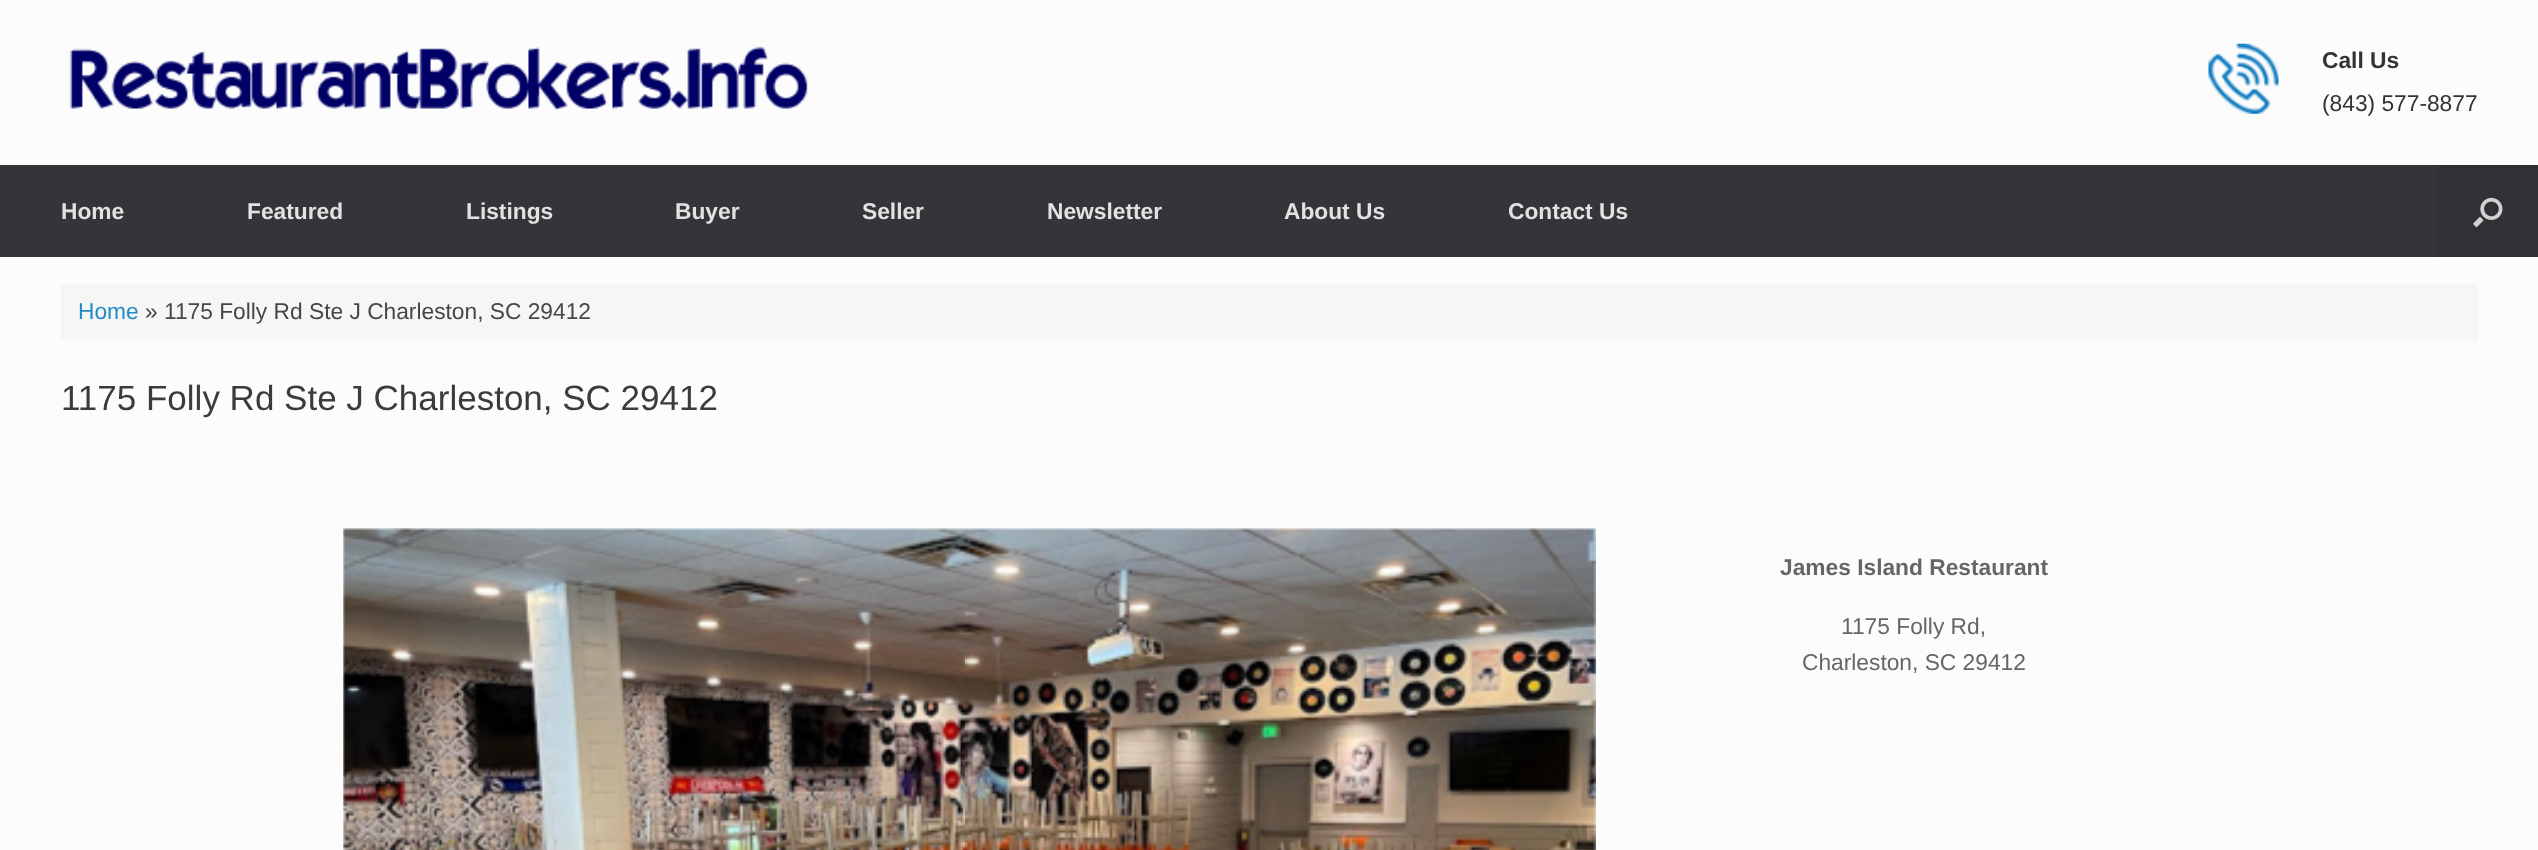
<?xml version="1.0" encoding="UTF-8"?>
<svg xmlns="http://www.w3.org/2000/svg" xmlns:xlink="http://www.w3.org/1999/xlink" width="2538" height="850">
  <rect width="100%" height="100%" fill="#fcfcfc" />
  <image x="69" y="46" width="739" height="65" xlink:href="image1.png" />
  <image x="2208" y="43" width="71" height="71" xlink:href="image2.png" />
  <rect y="165" width="2436" height="92" fill="#343538" />
  <rect x="2436" y="165" width="102" height="92" fill="#303134" />
  <image x="2473" y="197" width="30" height="31" xlink:href="image3.png" />
  <rect x="61" y="284" width="2417" height="57" fill="#f6f6f6" />
  <image x="343" y="528" width="1253" height="322" xlink:href="image4.png" />
  <text x="2322" y="68" style="font-family: Liberation Sans; font-size: 22.75px; font-weight: bold; fill: #333333">Call Us</text>
  <text x="2322" y="111" style="font-family: Liberation Sans; font-size: 22.75px; fill: #333333">(843) 577-8877</text>
  <text x="61" y="219" style="font-family: Liberation Sans; font-size: 22.75px; font-weight: bold; fill: #e2e2e2">Home</text>
  <text x="247" y="219" style="font-family: Liberation Sans; font-size: 22.75px; font-weight: bold; fill: #e2e2e2">Featured</text>
  <text x="466" y="219" style="font-family: Liberation Sans; font-size: 22.75px; font-weight: bold; fill: #e2e2e2">Listings</text>
  <text x="675" y="219" style="font-family: Liberation Sans; font-size: 22.75px; font-weight: bold; fill: #e2e2e2">Buyer</text>
  <text x="862" y="219" style="font-family: Liberation Sans; font-size: 22.75px; font-weight: bold; fill: #e2e2e2">Seller</text>
  <text x="1047" y="219" style="font-family: Liberation Sans; font-size: 22.75px; font-weight: bold; fill: #e2e2e2">Newsletter</text>
  <text x="1284" y="219" style="font-family: Liberation Sans; font-size: 22.75px; font-weight: bold; fill: #e2e2e2">About Us</text>
  <text x="1508" y="219" style="font-family: Liberation Sans; font-size: 22.75px; font-weight: bold; fill: #e2e2e2">Contact Us</text>
  <text x="78" y="319" style="font-family: Liberation Sans; font-size: 22.75px; fill: #248cc8">Home</text>
  <text x="145" y="319" style="font-family: Liberation Sans; font-size: 22.75px; fill: #474747">» 1175 Folly Rd Ste J Charleston, SC 29412</text>
  <text x="61" y="410" style="font-family: Liberation Sans; font-size: 35px; fill: #3b3b3b">1175 Folly Rd Ste J Charleston, SC 29412</text>
  <text x="1780" y="575" style="font-family: Liberation Sans; font-size: 22.75px; font-weight: bold; fill: #666666">James Island Restaurant</text>
  <text x="1841" y="634" style="font-family: Liberation Sans; font-size: 22.75px; fill: #666666">1175 Folly Rd,</text>
  <text x="1802" y="670" style="font-family: Liberation Sans; font-size: 22.75px; fill: #666666">Charleston, SC 29412</text>
</svg>
